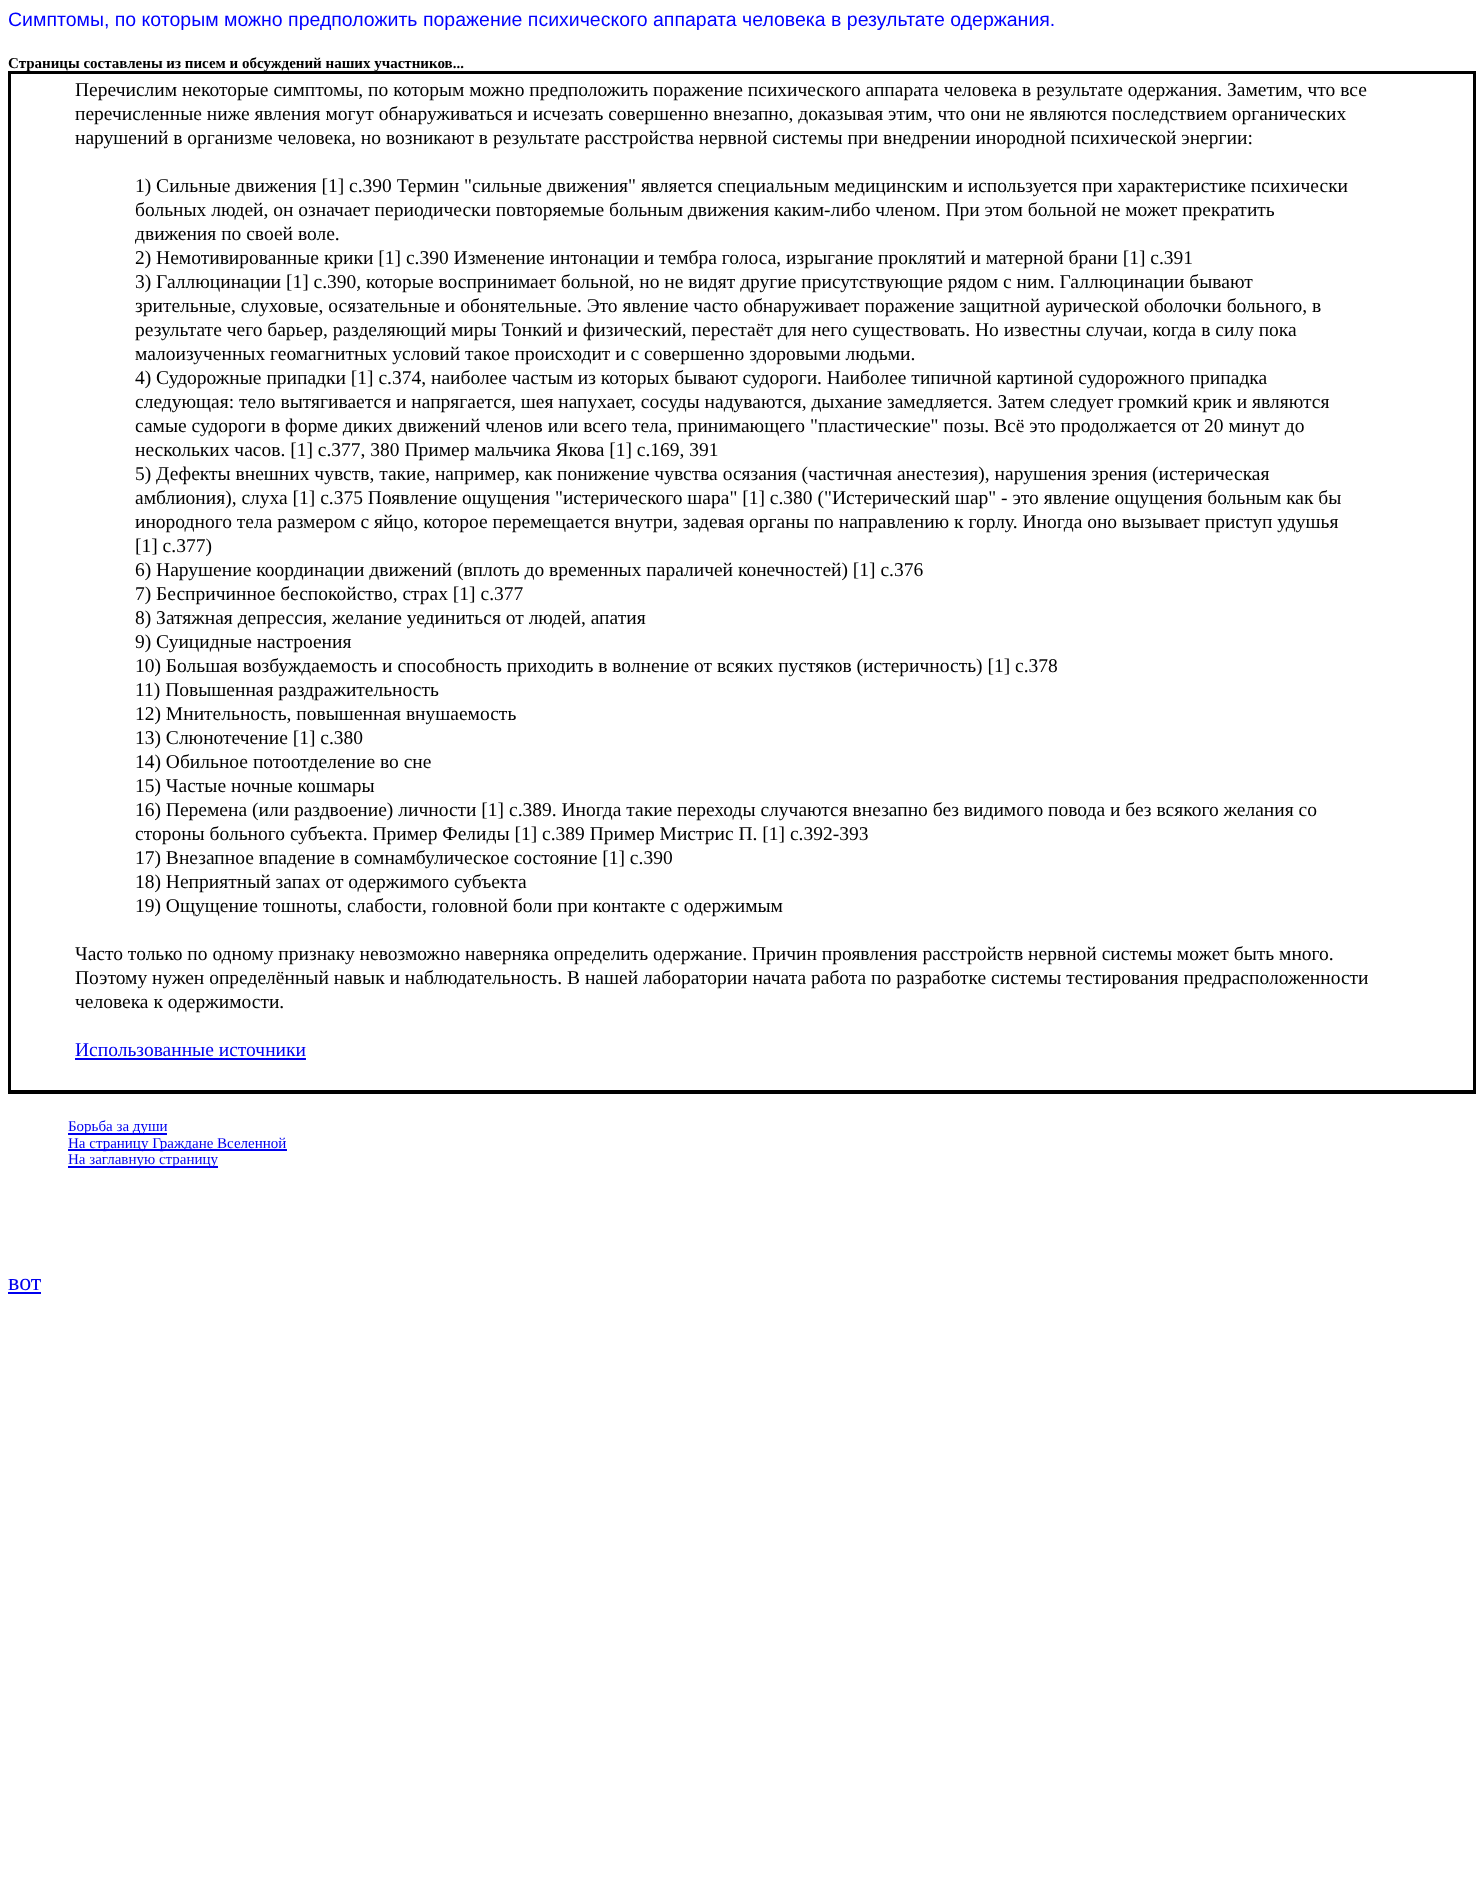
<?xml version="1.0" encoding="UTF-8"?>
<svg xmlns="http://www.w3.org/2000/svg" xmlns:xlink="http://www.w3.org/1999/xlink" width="1483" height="1885">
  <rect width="100%" height="100%" fill="#ffffff" />
  <rect x="9" y="72" width="1466" height="1021" fill="none" stroke="#000000" stroke-width="2" />
  <rect x="10" y="73" width="1464" height="1018" fill="none" stroke="#000000" stroke-width="2" />
  <rect x="75" y="1058" width="231" height="2" fill="#0000ee" />
  <rect x="68" y="1133" width="99" height="2" fill="#0000ee" />
  <rect x="68" y="1149" width="219" height="2" fill="#0000ee" />
  <rect x="68" y="1166" width="150" height="2" fill="#0000ee" />
  <rect x="8" y="1292" width="33" height="2" fill="#0000ee" />
  <text x="8" y="26" style="font-family: Liberation Sans; font-size: 19.5px; fill: #0000ff">Cимптомы, по которым можно предположить поражение психического аппарата человека в результате одержания.</text>
  <text x="8" y="68" style="font-family: Liberation Serif; font-size: 15px; font-weight: bold; fill: #000000">Страницы составлены из писем и обсуждений наших участников...</text>
  <text x="75" y="96" style="font-family: Liberation Serif; font-size: 19.5px; fill: #000000">Перечислим некоторые симптомы, по которым можно предположить поражение психического аппарата человека в результате одержания. Заметим, что все</text>
  <text x="75" y="120" style="font-family: Liberation Serif; font-size: 19.5px; fill: #000000">перечисленные ниже явления могут обнаруживаться и исчезать совершенно внезапно, доказывая этим, что они не являются последствием органических</text>
  <text x="75" y="144" style="font-family: Liberation Serif; font-size: 19.5px; fill: #000000">нарушений в организме человека, но возникают в результате расстройства нервной системы при внедрении инородной психической энергии:</text>
  <text x="135" y="192" style="font-family: Liberation Serif; font-size: 19.5px; fill: #000000">1) Сильные движения [1] с.390 Термин "сильные движения" является специальным медицинским и используется при характеристике психически</text>
  <text x="135" y="216" style="font-family: Liberation Serif; font-size: 19.5px; fill: #000000">больных людей, он означает периодически повторяемые больным движения каким-либо членом. При этом больной не может прекратить</text>
  <text x="135" y="240" style="font-family: Liberation Serif; font-size: 19.5px; fill: #000000">движения по своей воле.</text>
  <text x="135" y="264" style="font-family: Liberation Serif; font-size: 19.5px; fill: #000000">2) Немотивированные крики [1] с.390 Изменение интонации и тембра голоса, изрыгание проклятий и матерной брани [1] с.391</text>
  <text x="135" y="288" style="font-family: Liberation Serif; font-size: 19.5px; fill: #000000">3) Галлюцинации [1] с.390, которые воспринимает больной, но не видят другие присутствующие рядом с ним. Галлюцинации бывают</text>
  <text x="135" y="312" style="font-family: Liberation Serif; font-size: 19.5px; fill: #000000">зрительные, слуховые, осязательные и обонятельные. Это явление часто обнаруживает поражение защитной аурической оболочки больного, в</text>
  <text x="135" y="336" style="font-family: Liberation Serif; font-size: 19.5px; fill: #000000">результате чего барьер, разделяющий миры Тонкий и физический, перестаёт для него существовать. Но известны случаи, когда в силу пока</text>
  <text x="135" y="360" style="font-family: Liberation Serif; font-size: 19.5px; fill: #000000">малоизученных геомагнитных условий такое происходит и с совершенно здоровыми людьми.</text>
  <text x="135" y="384" style="font-family: Liberation Serif; font-size: 19.5px; fill: #000000">4) Судорожные припадки [1] с.374, наиболее частым из которых бывают судороги. Наиболее типичной картиной судорожного припадка</text>
  <text x="135" y="408" style="font-family: Liberation Serif; font-size: 19.5px; fill: #000000">следующая: тело вытягивается и напрягается, шея напухает, сосуды надуваются, дыхание замедляется. Затем следует громкий крик и являются</text>
  <text x="135" y="432" style="font-family: Liberation Serif; font-size: 19.5px; fill: #000000">самые судороги в форме диких движений членов или всего тела, принимающего "пластические" позы. Всё это продолжается от 20 минут до</text>
  <text x="135" y="456" style="font-family: Liberation Serif; font-size: 19.5px; fill: #000000">нескольких часов. [1] с.377, 380 Пример мальчика Якова [1] с.169, 391</text>
  <text x="135" y="480" style="font-family: Liberation Serif; font-size: 19.5px; fill: #000000">5) Дефекты внешних чувств, такие, например, как понижение чувства осязания (частичная анестезия), нарушения зрения (истерическая</text>
  <text x="135" y="504" style="font-family: Liberation Serif; font-size: 19.5px; fill: #000000">амблиония), слуха [1] с.375 Появление ощущения "истерического шара" [1] с.380 ("Истерический шар" - это явление ощущения больным как бы</text>
  <text x="135" y="528" style="font-family: Liberation Serif; font-size: 19.5px; fill: #000000">инородного тела размером с яйцо, которое перемещается внутри, задевая органы по направлению к горлу. Иногда оно вызывает приступ удушья</text>
  <text x="135" y="552" style="font-family: Liberation Serif; font-size: 19.5px; fill: #000000">[1] с.377)</text>
  <text x="135" y="576" style="font-family: Liberation Serif; font-size: 19.5px; fill: #000000">6) Нарушение координации движений (вплоть до временных параличей конечностей) [1] с.376</text>
  <text x="135" y="600" style="font-family: Liberation Serif; font-size: 19.5px; fill: #000000">7) Беспричинное беспокойство, страх [1] с.377</text>
  <text x="135" y="624" style="font-family: Liberation Serif; font-size: 19.5px; fill: #000000">8) Затяжная депрессия, желание уединиться от людей, апатия</text>
  <text x="135" y="648" style="font-family: Liberation Serif; font-size: 19.5px; fill: #000000">9) Суицидные настроения</text>
  <text x="135" y="672" style="font-family: Liberation Serif; font-size: 19.5px; fill: #000000">10) Большая возбуждаемость и способность приходить в волнение от всяких пустяков (истеричность) [1] с.378</text>
  <text x="135" y="696" style="font-family: Liberation Serif; font-size: 19.5px; fill: #000000">11) Повышенная раздражительность</text>
  <text x="135" y="720" style="font-family: Liberation Serif; font-size: 19.5px; fill: #000000">12) Мнительность, повышенная внушаемость</text>
  <text x="135" y="744" style="font-family: Liberation Serif; font-size: 19.5px; fill: #000000">13) Слюнотечение [1] с.380</text>
  <text x="135" y="768" style="font-family: Liberation Serif; font-size: 19.5px; fill: #000000">14) Обильное потоотделение во сне</text>
  <text x="135" y="792" style="font-family: Liberation Serif; font-size: 19.5px; fill: #000000">15) Частые ночные кошмары</text>
  <text x="135" y="816" style="font-family: Liberation Serif; font-size: 19.5px; fill: #000000">16) Перемена (или раздвоение) личности [1] с.389. Иногда такие переходы случаются внезапно без видимого повода и без всякого желания со</text>
  <text x="135" y="840" style="font-family: Liberation Serif; font-size: 19.5px; fill: #000000">стороны больного субъекта. Пример Фелиды [1] с.389 Пример Мистрис П. [1] с.392-393</text>
  <text x="135" y="864" style="font-family: Liberation Serif; font-size: 19.5px; fill: #000000">17) Внезапное впадение в сомнамбулическое состояние [1] с.390</text>
  <text x="135" y="888" style="font-family: Liberation Serif; font-size: 19.5px; fill: #000000">18) Неприятный запах от одержимого субъекта</text>
  <text x="135" y="912" style="font-family: Liberation Serif; font-size: 19.5px; fill: #000000">19) Ощущение тошноты, слабости, головной боли при контакте с одержимым</text>
  <text x="75" y="960" style="font-family: Liberation Serif; font-size: 19.5px; fill: #000000">Часто только по одному признаку невозможно наверняка определить одержание. Причин проявления расстройств нервной системы может быть много.</text>
  <text x="75" y="984" style="font-family: Liberation Serif; font-size: 19.5px; fill: #000000">Поэтому нужен определённый навык и наблюдательность. В нашей лаборатории начата работа по разработке системы тестирования предрасположенности</text>
  <text x="75" y="1008" style="font-family: Liberation Serif; font-size: 19.5px; fill: #000000">человека к одержимости.</text>
  <text x="75" y="1056" style="font-family: Liberation Serif; font-size: 19.5px; fill: #0000ee">Использованные источники</text>
  <text x="68" y="1131" style="font-family: Liberation Serif; font-size: 15px; fill: #0000ee">Борьба за души</text>
  <text x="68" y="1148" style="font-family: Liberation Serif; font-size: 15px; fill: #0000ee">На страницу Граждане Вселенной</text>
  <text x="68" y="1164" style="font-family: Liberation Serif; font-size: 15px; fill: #0000ee">На заглавную страницу</text>
  <text x="8" y="1290" style="font-family: Liberation Serif; font-size: 24px; fill: #0000ee">вот</text>
</svg>
